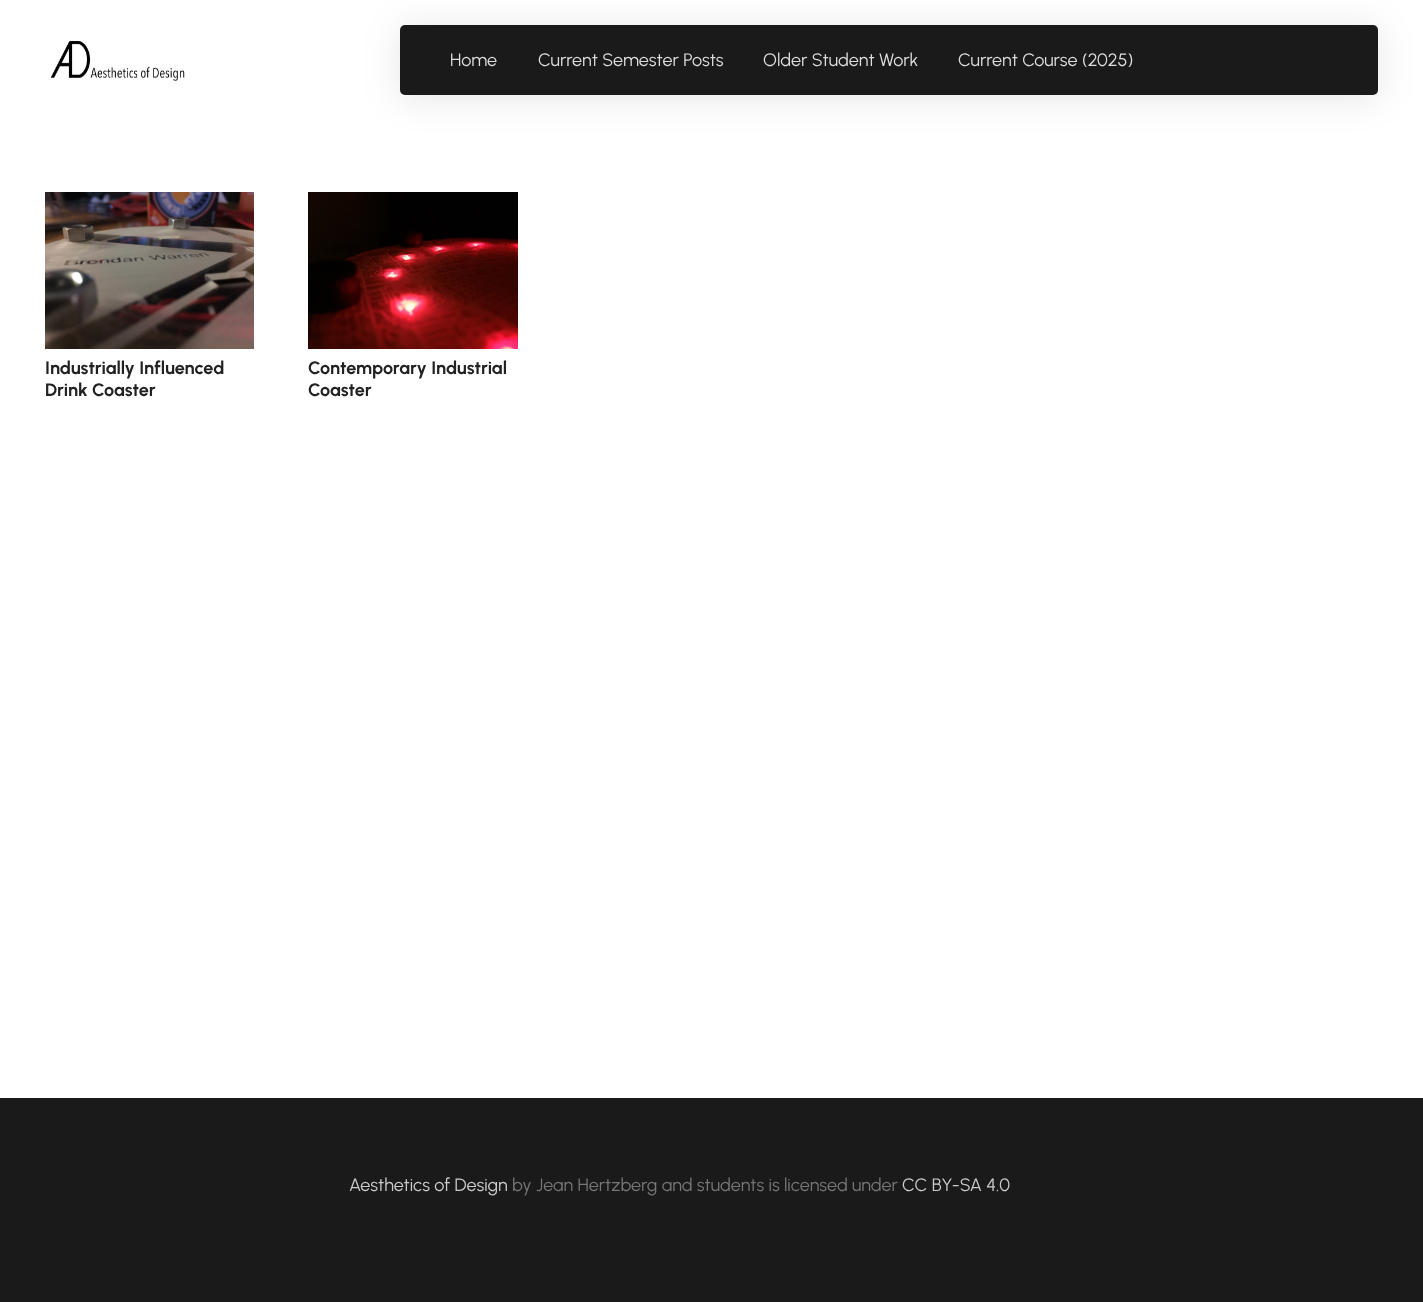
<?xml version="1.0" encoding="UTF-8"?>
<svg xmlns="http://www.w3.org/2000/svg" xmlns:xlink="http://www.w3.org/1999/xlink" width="1423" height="1302">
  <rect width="100%" height="100%" fill="#ffffff" />
  <image x="50" y="40" width="135" height="41" xlink:href="image1.png" />
  <rect x="400" y="28" width="978" height="70" rx="5" fill="#000000" fill-opacity="0.1" filter="blur(18px)" />
  <rect x="400" y="25" width="978" height="70" rx="5" fill="#1a1a1a" />
  <image x="45" y="192" width="209" height="157" xlink:href="image2.png" />
  <image x="308" y="192" width="210" height="157" xlink:href="image3.png" />
  <rect y="1098" width="1423" height="204" fill="#1a1a1a" />
  <text x="450" y="66" style="font-family: Urbanist; font-size: 18px; fill: #dddddd">Home</text>
  <text x="538" y="66" style="font-family: Urbanist; font-size: 18px; fill: #dddddd">Current Semester Posts</text>
  <text x="763" y="66" style="font-family: Urbanist; font-size: 18px; fill: #dddddd">Older Student Work</text>
  <text x="958" y="66" style="font-family: Urbanist; font-size: 18px; fill: #dddddd">Current Course (2025)</text>
  <text x="45" y="374" style="font-family: Urbanist; font-size: 18px; font-weight: bold; fill: #222222">Industrially Influenced</text>
  <text x="45" y="396" style="font-family: Urbanist; font-size: 18px; font-weight: bold; fill: #222222">Drink Coaster</text>
  <text x="308" y="374" style="font-family: Urbanist; font-size: 18px; font-weight: bold; fill: #222222">Contemporary Industrial</text>
  <text x="308" y="396" style="font-family: Urbanist; font-size: 18px; font-weight: bold; fill: #222222">Coaster</text>
  <text x="349" y="1191" style="font-family: Urbanist; font-size: 18px; fill: #cccccc">Aesthetics of Design</text>
  <text x="512" y="1191" style="font-family: Urbanist; font-size: 18px; fill: #777777">by Jean Hertzberg and students is licensed under</text>
  <text x="902" y="1191" style="font-family: Urbanist; font-size: 18px; fill: #cccccc">CC BY-SA 4.0</text>
</svg>
